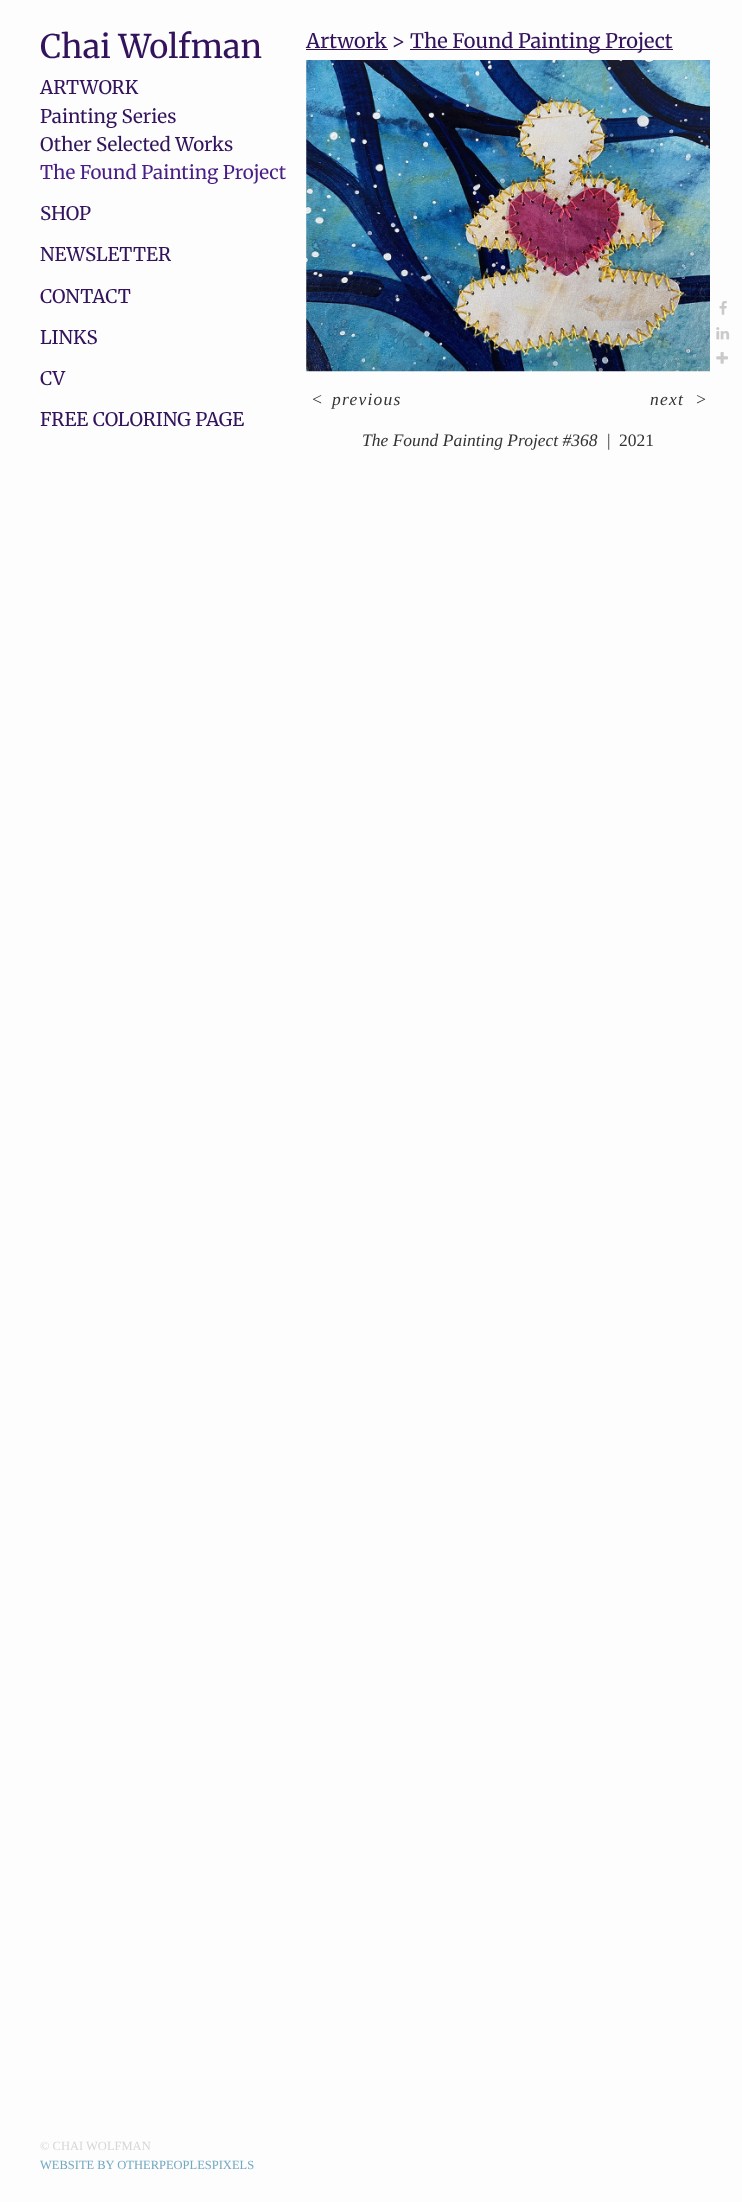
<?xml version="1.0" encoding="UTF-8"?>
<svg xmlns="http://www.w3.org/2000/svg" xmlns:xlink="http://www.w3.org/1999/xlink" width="742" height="2202">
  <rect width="100%" height="100%" fill="#fdfdfd" />
  <rect x="306" y="49" width="82" height="1" fill="#33145c" />
  <rect x="410" y="49" width="263" height="1" fill="#33145c" />
  <image x="306" y="60" width="404" height="312" xlink:href="image1.png" />
  <image x="719" y="301" width="8" height="14" xlink:href="image2.png" />
  <image x="716" y="327" width="14" height="13" xlink:href="image3.png" />
  <image x="716" y="352" width="12" height="12" xlink:href="image4.png" />
  <text x="40" y="58" style="font-family: Merriweather; font-size: 32.5px; font-weight: 300; fill: #33145c">Chai Wolfman</text>
  <text x="40" y="94" style="font-family: Merriweather; font-size: 18.75px; font-weight: 300; fill: #33145c">ARTWORK</text>
  <text x="40" y="123" style="font-family: Merriweather; font-size: 18.75px; font-weight: 300; fill: #33145c">Painting Series</text>
  <text x="40" y="151" style="font-family: Merriweather; font-size: 18.75px; font-weight: 300; fill: #33145c">Other Selected Works</text>
  <text x="40" y="179" style="font-family: Merriweather; font-size: 18.75px; font-weight: 300; fill: #4a1d86">The Found Painting Project</text>
  <text x="40" y="220" style="font-family: Merriweather; font-size: 18.75px; font-weight: 300; fill: #33145c">SHOP</text>
  <text x="40" y="261" style="font-family: Merriweather; font-size: 18.75px; font-weight: 300; fill: #33145c">NEWSLETTER</text>
  <text x="40" y="303" style="font-family: Merriweather; font-size: 18.75px; font-weight: 300; fill: #33145c">CONTACT</text>
  <text x="40" y="344" style="font-family: Merriweather; font-size: 18.75px; font-weight: 300; fill: #33145c">LINKS</text>
  <text x="40" y="385" style="font-family: Merriweather; font-size: 18.75px; font-weight: 300; fill: #33145c">CV</text>
  <text x="40" y="426" style="font-family: Merriweather; font-size: 18.75px; font-weight: 300; fill: #33145c">FREE COLORING PAGE</text>
  <text x="40" y="2150" style="font-family: Liberation Serif; font-size: 12.5px; fill: #d6d6d6">© CHAI WOLFMAN</text>
  <text x="40" y="2169" style="font-family: Liberation Serif; font-size: 12.5px; fill: #70a8c0">WEBSITE BY OTHERPEOPLESPIXELS</text>
  <text x="306" y="48" style="font-family: Merriweather; font-size: 20px; font-weight: 300; fill: #33145c">Artwork &gt;</text>
  <text x="410" y="48" style="font-family: Merriweather; font-size: 20px; font-weight: 300; fill: #33145c">The Found Painting Project</text>
  <text x="311" y="405" style="font-family: Liberation Serif; font-size: 17.5px; font-style: italic; letter-spacing: 1.25px; fill: #333333">&lt;</text>
  <text x="332" y="405" style="font-family: Liberation Serif; font-size: 17.5px; font-style: italic; letter-spacing: 1.25px; fill: #333333">previous</text>
  <text x="650" y="405" style="font-family: Liberation Serif; font-size: 17.5px; font-style: italic; letter-spacing: 1.25px; fill: #333333">next</text>
  <text x="695" y="405" style="font-family: Liberation Serif; font-size: 17.5px; font-style: italic; letter-spacing: 1.25px; fill: #333333">&gt;</text>
  <text x="362" y="446" style="font-family: Liberation Serif; font-size: 17.5px; font-style: italic; fill: #333333">The Found Painting Project #368</text>
  <text x="607" y="446" style="font-family: Liberation Serif; font-size: 17.5px; fill: #333333">|</text>
  <text x="619" y="446" style="font-family: Liberation Serif; font-size: 17.5px; fill: #333333">2021</text>
</svg>
